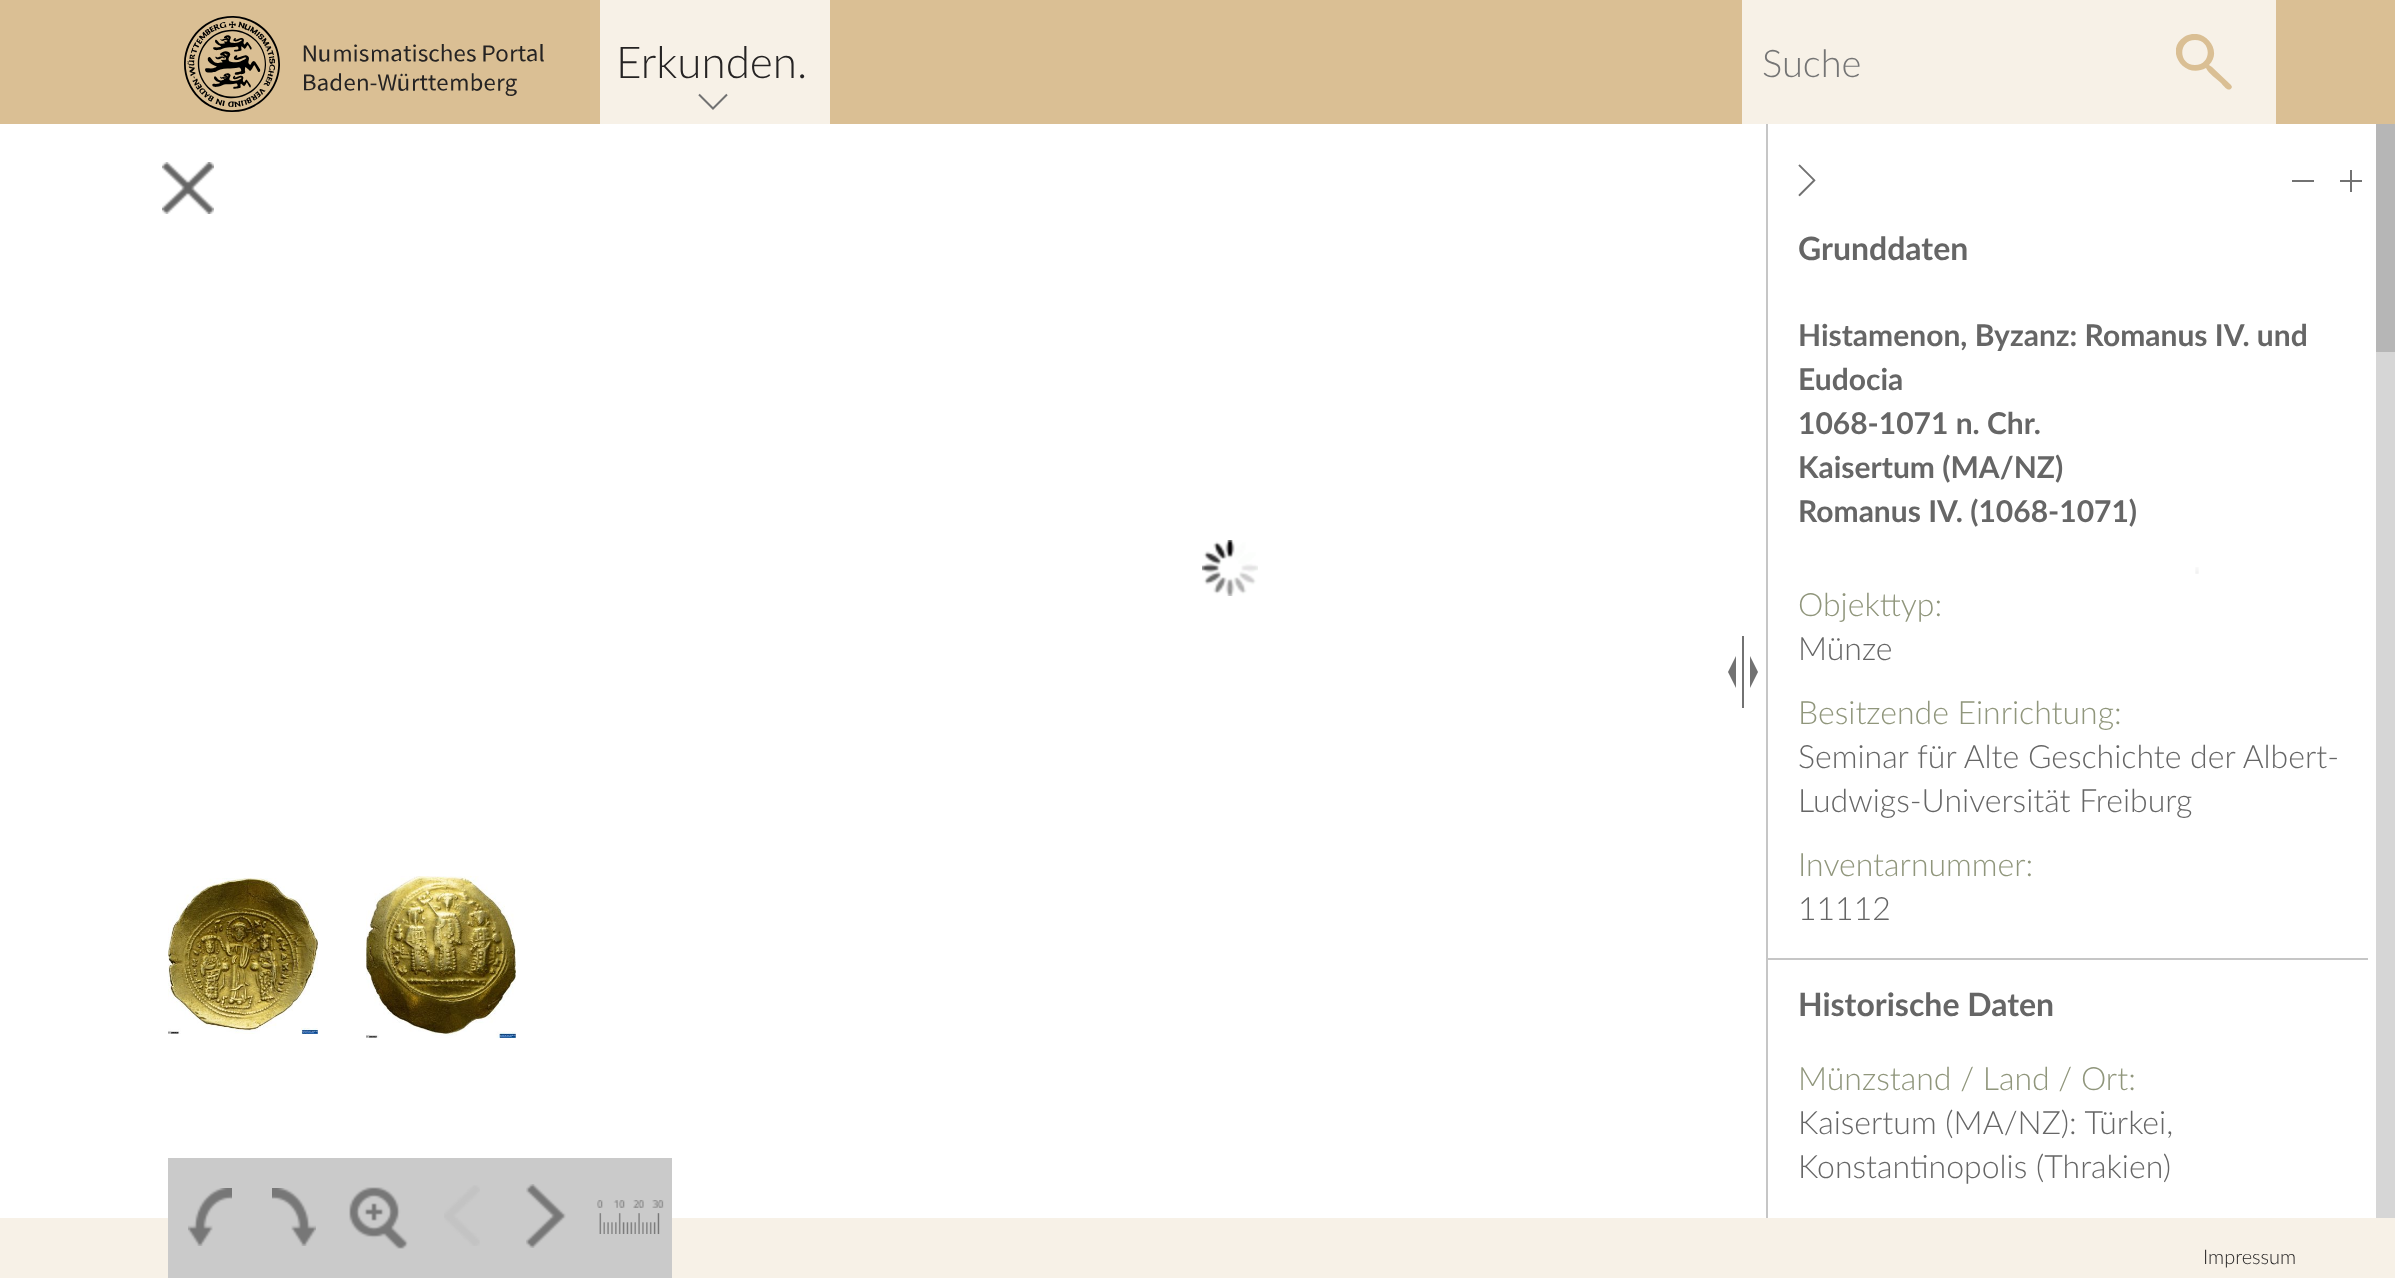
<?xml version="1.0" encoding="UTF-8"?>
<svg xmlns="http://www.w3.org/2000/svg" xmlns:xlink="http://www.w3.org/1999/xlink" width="2395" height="1278">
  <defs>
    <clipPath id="clip1"><rect x="2176" y="34" width="56" height="56" /></clipPath>
  </defs>
  <rect width="100%" height="100%" fill="#ffffff" />
  <rect width="2395" height="124" fill="#dabf94" />
  <image x="184" y="16" width="360" height="96" xlink:href="image1.png" />
  <rect x="600" width="230" height="124" fill="#f7f1e7" />
  <path d="M 727 94.5 l -14 14 l -14 -14" fill="none" stroke="#727272" stroke-width="2" />
  <rect x="1742" width="534" height="124" fill="#f7f1e7" />
  <g clip-path="url(#clip1)">
    <path d="M 2231 85 l -19 -18 l -3 -2 c 15 -15 -6 -40 -25 -28 c -20 13 0 43 22 31 c 3 6 10 10 15 15 c 2 2 8 11 11 4 z m -36 -20 c -17 0 -17 -25 0 -25 c 17 0 17 25 0 25 z" fill="#dabf94" />
  </g>
  <image x="162" y="162" width="52" height="52" xlink:href="image2.png" />
  <image x="1202" y="540" width="56" height="56" xlink:href="image3.png" />
  <rect x="1766" y="124" width="2" height="1094" fill="#c6c6c6" />
  <image x="1798" y="164" width="18" height="33" xlink:href="image4.png" />
  <rect x="2292" y="180" width="22" height="2" fill="#727272" />
  <rect x="2340" y="180" width="22" height="2" fill="#727272" />
  <rect x="2350" y="170" width="2" height="22" fill="#727272" />
  <rect x="1742" y="636" width="2" height="72" fill="#727272" />
  <path d="M 1728 672 l 8 -16 v 32 l -4 -8 z m 30 0 l -8 -16 v 32 l 4 -8 z" fill="#727272" />
  <rect x="1768" y="958" width="600" height="2" fill="#c6c6c6" />
  <rect x="2376" y="352" width="19" height="866" fill="#d6d6d6" />
  <rect x="2376" y="124" width="19" height="228" fill="#b6b6b6" />
  <rect y="1218" width="2395" height="60" fill="#f7f1e7" />
  <rect x="168" y="1158" width="504" height="120" fill="#cacaca" />
  <image x="2195" y="567" width="4" height="7" xlink:href="image5.png" />
  <image x="188" y="1188" width="44" height="58" xlink:href="image6.png" />
  <image x="272" y="1188" width="44" height="58" xlink:href="image7.png" />
  <image x="349" y="1187" width="59" height="62" xlink:href="image8.png" />
  <image x="444" y="1185" width="36" height="61" xlink:href="image9.png" />
  <image x="526" y="1184" width="40" height="64" xlink:href="image10.png" />
  <image x="597" y="1200" width="67" height="34" xlink:href="image11.png" />
  <image x="168" y="878" width="150" height="156" xlink:href="image12.png" />
  <image x="366" y="876" width="150" height="162" xlink:href="image13.png" />
  <text x="616" y="78" style="font-family: Lato; font-size: 44px; font-weight: 300; fill: #252323">Erkunden.</text>
  <text x="1762" y="77" style="font-family: Lato; font-size: 38px; font-weight: 300; fill: #757575">Suche</text>
  <text x="1798" y="260" style="font-family: Lato; font-size: 32px; font-weight: bold; fill: #666666">Grunddaten</text>
  <text x="1798" y="346" style="font-family: Lato; font-size: 30px; font-weight: bold; fill: #666666">Histamenon, Byzanz: Romanus IV. und</text>
  <text x="1798" y="390" style="font-family: Lato; font-size: 30px; font-weight: bold; fill: #666666">Eudocia</text>
  <text x="1798" y="434" style="font-family: Lato; font-size: 30px; font-weight: bold; fill: #666666">1068-1071 n. Chr.</text>
  <text x="1798" y="478" style="font-family: Lato; font-size: 30px; font-weight: bold; fill: #666666">Kaisertum (MA/NZ)</text>
  <text x="1798" y="522" style="font-family: Lato; font-size: 30px; font-weight: bold; fill: #666666">Romanus IV. (1068-1071)</text>
  <text x="1798" y="616" style="font-family: Lato; font-size: 32px; font-weight: 300; fill: #90967c">Objekttyp:</text>
  <text x="1798" y="660" style="font-family: Lato; font-size: 32px; font-weight: 300; fill: #666666">Münze</text>
  <text x="1798" y="724" style="font-family: Lato; font-size: 32px; font-weight: 300; fill: #90967c">Besitzende Einrichtung:</text>
  <text x="1798" y="768" style="font-family: Lato; font-size: 32px; font-weight: 300; fill: #666666">Seminar für Alte Geschichte der Albert-</text>
  <text x="1798" y="812" style="font-family: Lato; font-size: 32px; font-weight: 300; fill: #666666">Ludwigs-Universität Freiburg</text>
  <text x="1798" y="876" style="font-family: Lato; font-size: 32px; font-weight: 300; fill: #90967c">Inventarnummer:</text>
  <text x="1798" y="920" style="font-family: Lato; font-size: 32px; font-weight: 300; fill: #666666">11112</text>
  <text x="1798" y="1016" style="font-family: Lato; font-size: 32px; font-weight: bold; fill: #666666">Historische Daten</text>
  <text x="1798" y="1090" style="font-family: Lato; font-size: 32px; font-weight: 300; fill: #90967c">Münzstand / Land / Ort:</text>
  <text x="1798" y="1134" style="font-family: Lato; font-size: 32px; font-weight: 300; fill: #666666">Kaisertum (MA/NZ): Türkei,</text>
  <text x="1798" y="1178" style="font-family: Lato; font-size: 32px; font-weight: 300; fill: #666666">Konstantinopolis (Thrakien)</text>
  <text x="2203" y="1264" style="font-family: Lato; font-size: 20px; font-weight: 300; fill: #252323">Impressum</text>
</svg>
